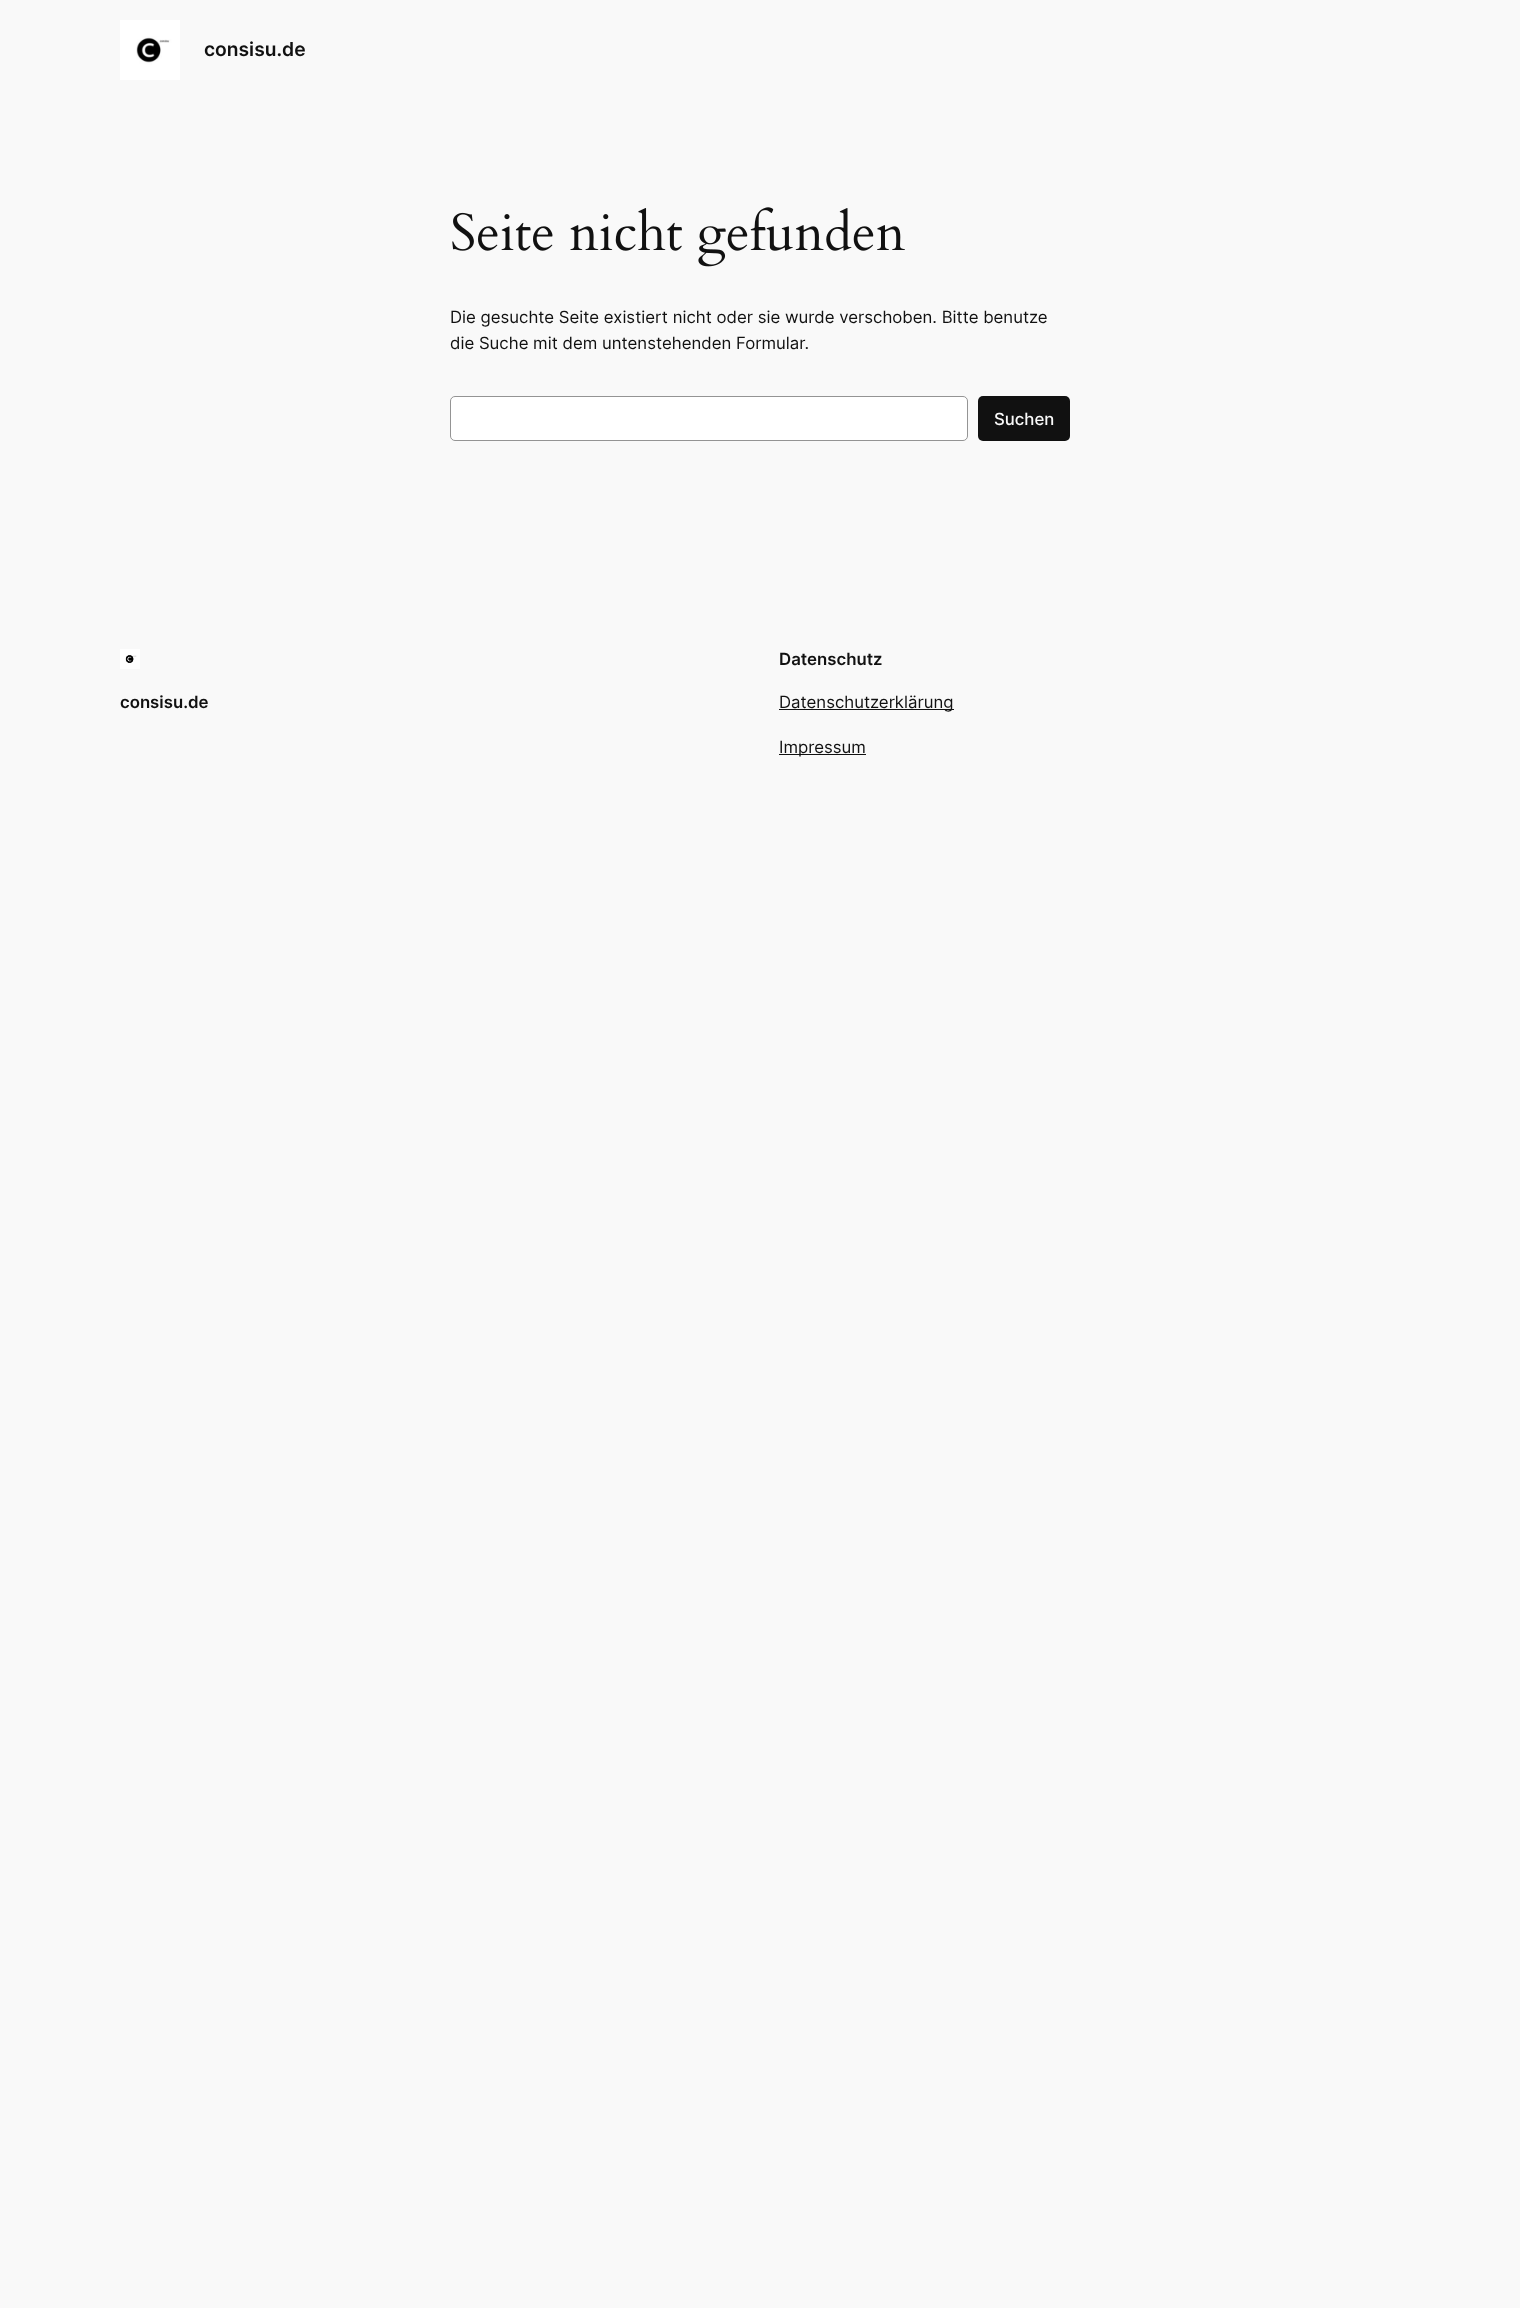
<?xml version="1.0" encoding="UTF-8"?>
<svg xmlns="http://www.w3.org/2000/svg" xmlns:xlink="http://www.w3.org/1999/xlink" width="1520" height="2308">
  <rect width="100%" height="100%" fill="#f9f9f9" />
  <image x="120" y="20" width="60" height="60" xlink:href="image1.png" />
  <image x="452" y="207" width="453" height="60" xlink:href="image2.png" />
  <rect x="450.5" y="396.5" width="517" height="44" rx="4.5" fill="#ffffff" stroke="#949494" />
  <rect x="978" y="396" width="92" height="45" rx="5" fill="#111111" />
  <image x="120" y="649" width="20" height="20" xlink:href="image3.png" />
  <rect x="779" y="709" width="175" height="1" fill="#111111" />
  <rect x="779" y="754" width="87" height="1" fill="#111111" />
  <text x="204" y="56" style="font-family: Inter; font-size: 19.25px; font-weight: 600; fill: #111111">consisu.de</text>
  <text x="450" y="323" style="font-family: Inter; font-size: 16.8px; fill: #111111">Die gesuchte Seite existiert nicht oder sie wurde verschoben. Bitte benutze</text>
  <text x="450" y="349" style="font-family: Inter; font-size: 16.8px; fill: #111111">die Suche mit dem untenstehenden Formular.</text>
  <text x="994" y="425" style="font-family: Inter; font-size: 16.8px; font-weight: 500; fill: #f9f9f9">Suchen</text>
  <text x="120" y="708" style="font-family: Inter; font-size: 16.8px; font-weight: 600; fill: #111111">consisu.de</text>
  <text x="779" y="665" style="font-family: Inter; font-size: 16.8px; font-weight: 600; fill: #111111">Datenschutz</text>
  <text x="779" y="708" style="font-family: Inter; font-size: 16.8px; fill: #111111">Datenschutzerklärung</text>
  <text x="779" y="753" style="font-family: Inter; font-size: 16.8px; fill: #111111">Impressum</text>
</svg>
